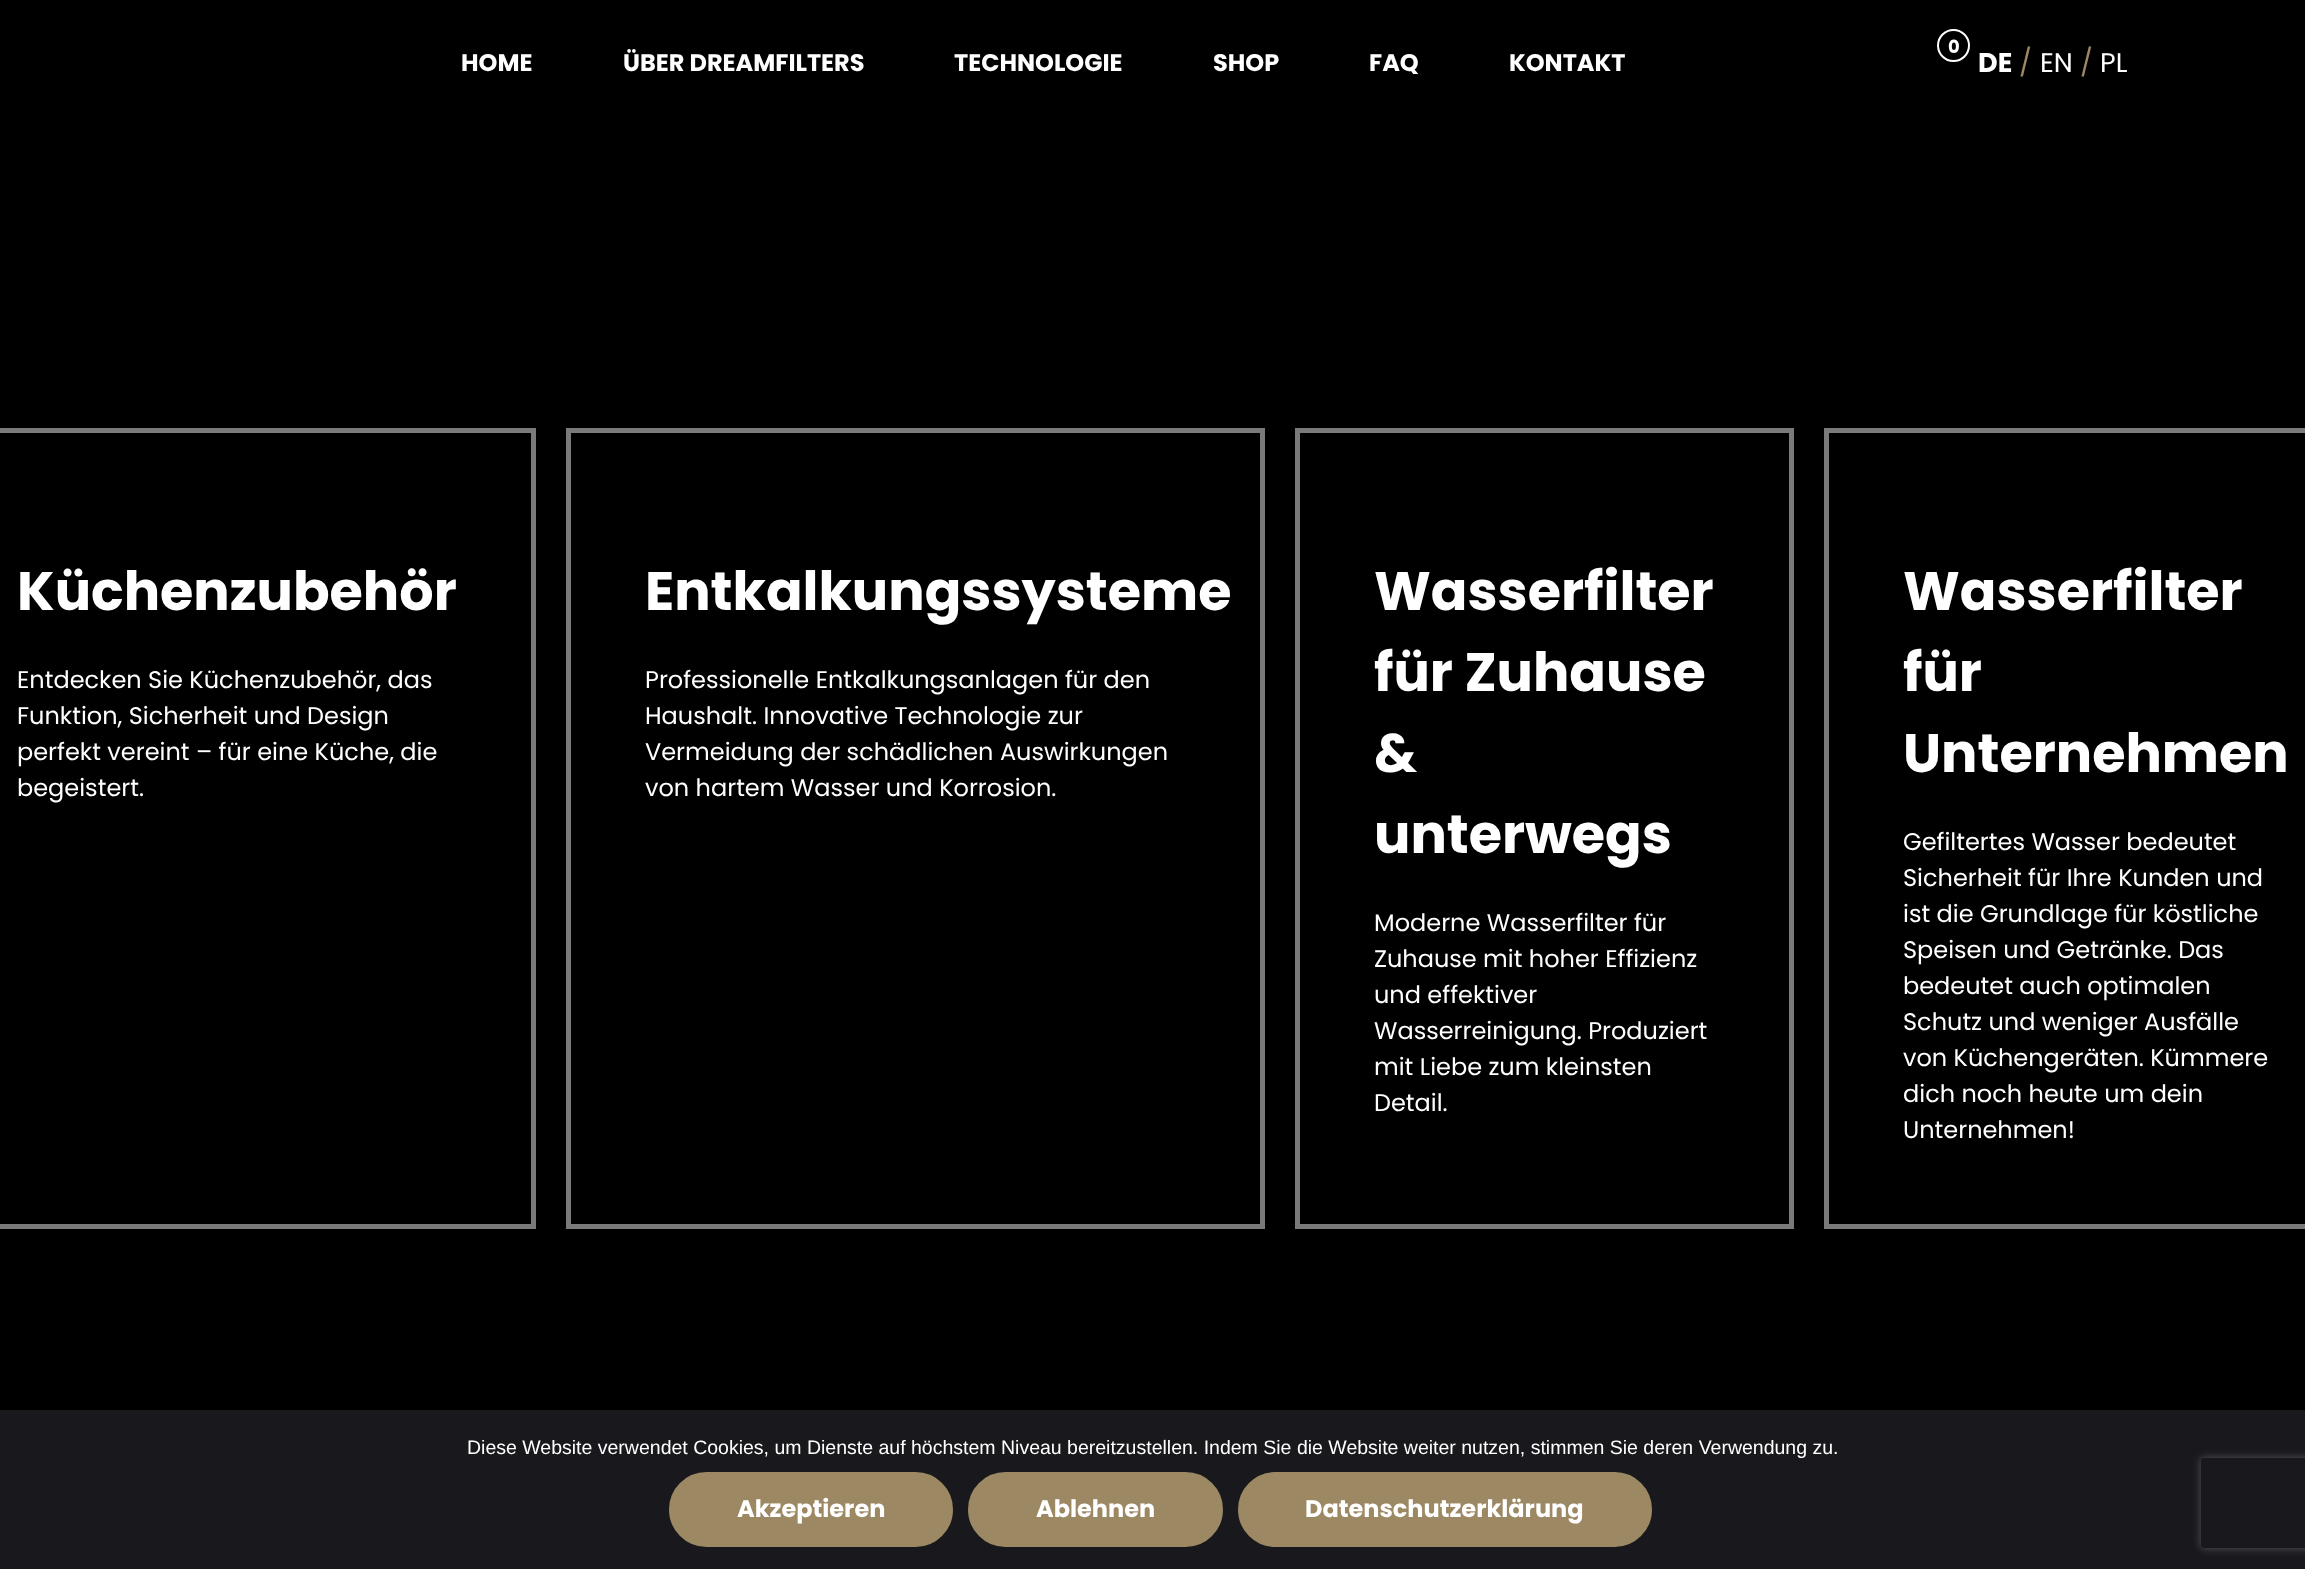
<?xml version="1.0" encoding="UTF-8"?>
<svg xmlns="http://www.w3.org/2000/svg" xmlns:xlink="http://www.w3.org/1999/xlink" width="2305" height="1569">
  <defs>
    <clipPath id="clip1"><path d="M 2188 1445 h 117 v 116 h -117 z m 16 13 h 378 c 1.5 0 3 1.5 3 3 v 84 c 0 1.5 -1.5 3 -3 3 h -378 c -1.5 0 -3 -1.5 -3 -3 v -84 c 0 -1.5 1.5 -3 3 -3 z" clip-rule="evenodd" /></clipPath>
  </defs>
  <rect width="100%" height="100%" fill="#000000" />
  <rect y="1410" width="2305" height="159" fill="#19191d" />
  <circle cx="1953.5" cy="45.5" r="15.5" fill="none" stroke="#ffffff" stroke-width="2" />
  <rect x="-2.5" y="430.5" width="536" height="796" fill="none" stroke="#7a7a7a" stroke-width="5" />
  <rect x="568.5" y="430.5" width="694" height="796" fill="none" stroke="#7a7a7a" stroke-width="5" />
  <rect x="1297.5" y="430.5" width="494" height="796" fill="none" stroke="#7a7a7a" stroke-width="5" />
  <rect x="1826.5" y="430.5" width="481" height="796" fill="none" stroke="#7a7a7a" stroke-width="5" />
  <rect x="671.5" y="1474.5" width="279" height="70" rx="35" fill="#9c8863" stroke="#9c8863" stroke-width="5" />
  <rect x="970.5" y="1474.5" width="250" height="70" rx="35" fill="#9c8863" stroke="#9c8863" stroke-width="5" />
  <rect x="1240.5" y="1474.5" width="409" height="70" rx="35" fill="#9c8863" stroke="#9c8863" stroke-width="5" />
  <g clip-path="url(#clip1)">
    <rect x="2201" y="1458" width="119" height="90" rx="3" fill="#59595d" filter="blur(4px)" />
  </g>
  <text x="461" y="71" style="font-family: Poppins; font-size: 24px; font-weight: bold; fill: #ffffff">HOME</text>
  <text x="623" y="71" style="font-family: Poppins; font-size: 24px; font-weight: bold; fill: #ffffff">ÜBER DREAMFILTERS</text>
  <text x="954" y="71" style="font-family: Poppins; font-size: 24px; font-weight: bold; fill: #ffffff">TECHNOLOGIE</text>
  <text x="1213" y="71" style="font-family: Poppins; font-size: 24px; font-weight: bold; fill: #ffffff">SHOP</text>
  <text x="1369" y="71" style="font-family: Poppins; font-size: 24px; font-weight: bold; fill: #ffffff">FAQ</text>
  <text x="1509" y="71" style="font-family: Poppins; font-size: 24px; font-weight: bold; fill: #ffffff">KONTAKT</text>
  <text x="1948" y="53" style="font-family: Poppins; font-size: 18px; font-weight: bold; fill: #ffffff">0</text>
  <text x="1978" y="72" style="font-family: Poppins; font-size: 27px; font-weight: bold; fill: #ffffff">DE</text>
  <text x="2019" y="72" style="font-family: Poppins; font-size: 27px; fill: #9c8863">/</text>
  <text x="2040" y="72" style="font-family: Poppins; font-size: 27px; fill: #ffffff">EN</text>
  <text x="2080" y="72" style="font-family: Poppins; font-size: 27px; fill: #9c8863">/</text>
  <text x="2100" y="72" style="font-family: Poppins; font-size: 27px; fill: #ffffff">PL</text>
  <text x="17" y="610" style="font-family: Poppins; font-size: 54px; font-weight: bold; fill: #ffffff">Küchenzubehör</text>
  <text x="17" y="688" style="font-family: Poppins; font-size: 24px; fill: #ffffff">Entdecken Sie Küchenzubehör, das</text>
  <text x="17" y="724" style="font-family: Poppins; font-size: 24px; fill: #ffffff">Funktion, Sicherheit und Design</text>
  <text x="17" y="760" style="font-family: Poppins; font-size: 24px; fill: #ffffff">perfekt vereint – für eine Küche, die</text>
  <text x="17" y="796" style="font-family: Poppins; font-size: 24px; fill: #ffffff">begeistert.</text>
  <text x="645" y="610" style="font-family: Poppins; font-size: 54px; font-weight: bold; fill: #ffffff">Entkalkungssysteme</text>
  <text x="645" y="688" style="font-family: Poppins; font-size: 24px; fill: #ffffff">Professionelle Entkalkungsanlagen für den</text>
  <text x="645" y="724" style="font-family: Poppins; font-size: 24px; fill: #ffffff">Haushalt. Innovative Technologie zur</text>
  <text x="645" y="760" style="font-family: Poppins; font-size: 24px; fill: #ffffff">Vermeidung der schädlichen Auswirkungen</text>
  <text x="645" y="796" style="font-family: Poppins; font-size: 24px; fill: #ffffff">von hartem Wasser und Korrosion.</text>
  <text x="1374" y="610" style="font-family: Poppins; font-size: 54px; font-weight: bold; fill: #ffffff">Wasserfilter</text>
  <text x="1374" y="691" style="font-family: Poppins; font-size: 54px; font-weight: bold; fill: #ffffff">für Zuhause</text>
  <text x="1374" y="772" style="font-family: Poppins; font-size: 54px; font-weight: bold; fill: #ffffff">&amp;</text>
  <text x="1374" y="853" style="font-family: Poppins; font-size: 54px; font-weight: bold; fill: #ffffff">unterwegs</text>
  <text x="1374" y="931" style="font-family: Poppins; font-size: 24px; fill: #ffffff">Moderne Wasserfilter für</text>
  <text x="1374" y="967" style="font-family: Poppins; font-size: 24px; fill: #ffffff">Zuhause mit hoher Effizienz</text>
  <text x="1374" y="1003" style="font-family: Poppins; font-size: 24px; fill: #ffffff">und effektiver</text>
  <text x="1374" y="1039" style="font-family: Poppins; font-size: 24px; fill: #ffffff">Wasserreinigung. Produziert</text>
  <text x="1374" y="1075" style="font-family: Poppins; font-size: 24px; fill: #ffffff">mit Liebe zum kleinsten</text>
  <text x="1374" y="1111" style="font-family: Poppins; font-size: 24px; fill: #ffffff">Detail.</text>
  <text x="1903" y="610" style="font-family: Poppins; font-size: 54px; font-weight: bold; fill: #ffffff">Wasserfilter</text>
  <text x="1903" y="691" style="font-family: Poppins; font-size: 54px; font-weight: bold; fill: #ffffff">für</text>
  <text x="1903" y="772" style="font-family: Poppins; font-size: 54px; font-weight: bold; fill: #ffffff">Unternehmen</text>
  <text x="1903" y="850" style="font-family: Poppins; font-size: 24px; fill: #ffffff">Gefiltertes Wasser bedeutet</text>
  <text x="1903" y="886" style="font-family: Poppins; font-size: 24px; fill: #ffffff">Sicherheit für Ihre Kunden und</text>
  <text x="1903" y="922" style="font-family: Poppins; font-size: 24px; fill: #ffffff">ist die Grundlage für köstliche</text>
  <text x="1903" y="958" style="font-family: Poppins; font-size: 24px; fill: #ffffff">Speisen und Getränke. Das</text>
  <text x="1903" y="994" style="font-family: Poppins; font-size: 24px; fill: #ffffff">bedeutet auch optimalen</text>
  <text x="1903" y="1030" style="font-family: Poppins; font-size: 24px; fill: #ffffff">Schutz und weniger Ausfälle</text>
  <text x="1903" y="1066" style="font-family: Poppins; font-size: 24px; fill: #ffffff">von Küchengeräten. Kümmere</text>
  <text x="1903" y="1102" style="font-family: Poppins; font-size: 24px; fill: #ffffff">dich noch heute um dein</text>
  <text x="1903" y="1138" style="font-family: Poppins; font-size: 24px; fill: #ffffff">Unternehmen!</text>
  <text x="467" y="1454" style="font-family: Liberation Sans; font-size: 19.5px; fill: #ffffff">Diese Website verwendet Cookies, um Dienste auf höchstem Niveau bereitzustellen. Indem Sie die Website weiter nutzen, stimmen Sie deren Verwendung zu.</text>
  <text x="737" y="1517" style="font-family: Poppins; font-size: 24px; font-weight: bold; fill: #ffffff">Akzeptieren</text>
  <text x="1036" y="1517" style="font-family: Poppins; font-size: 24px; font-weight: bold; fill: #ffffff">Ablehnen</text>
  <text x="1305" y="1517" style="font-family: Poppins; font-size: 24px; font-weight: bold; fill: #ffffff">Datenschutzerklärung</text>
</svg>
